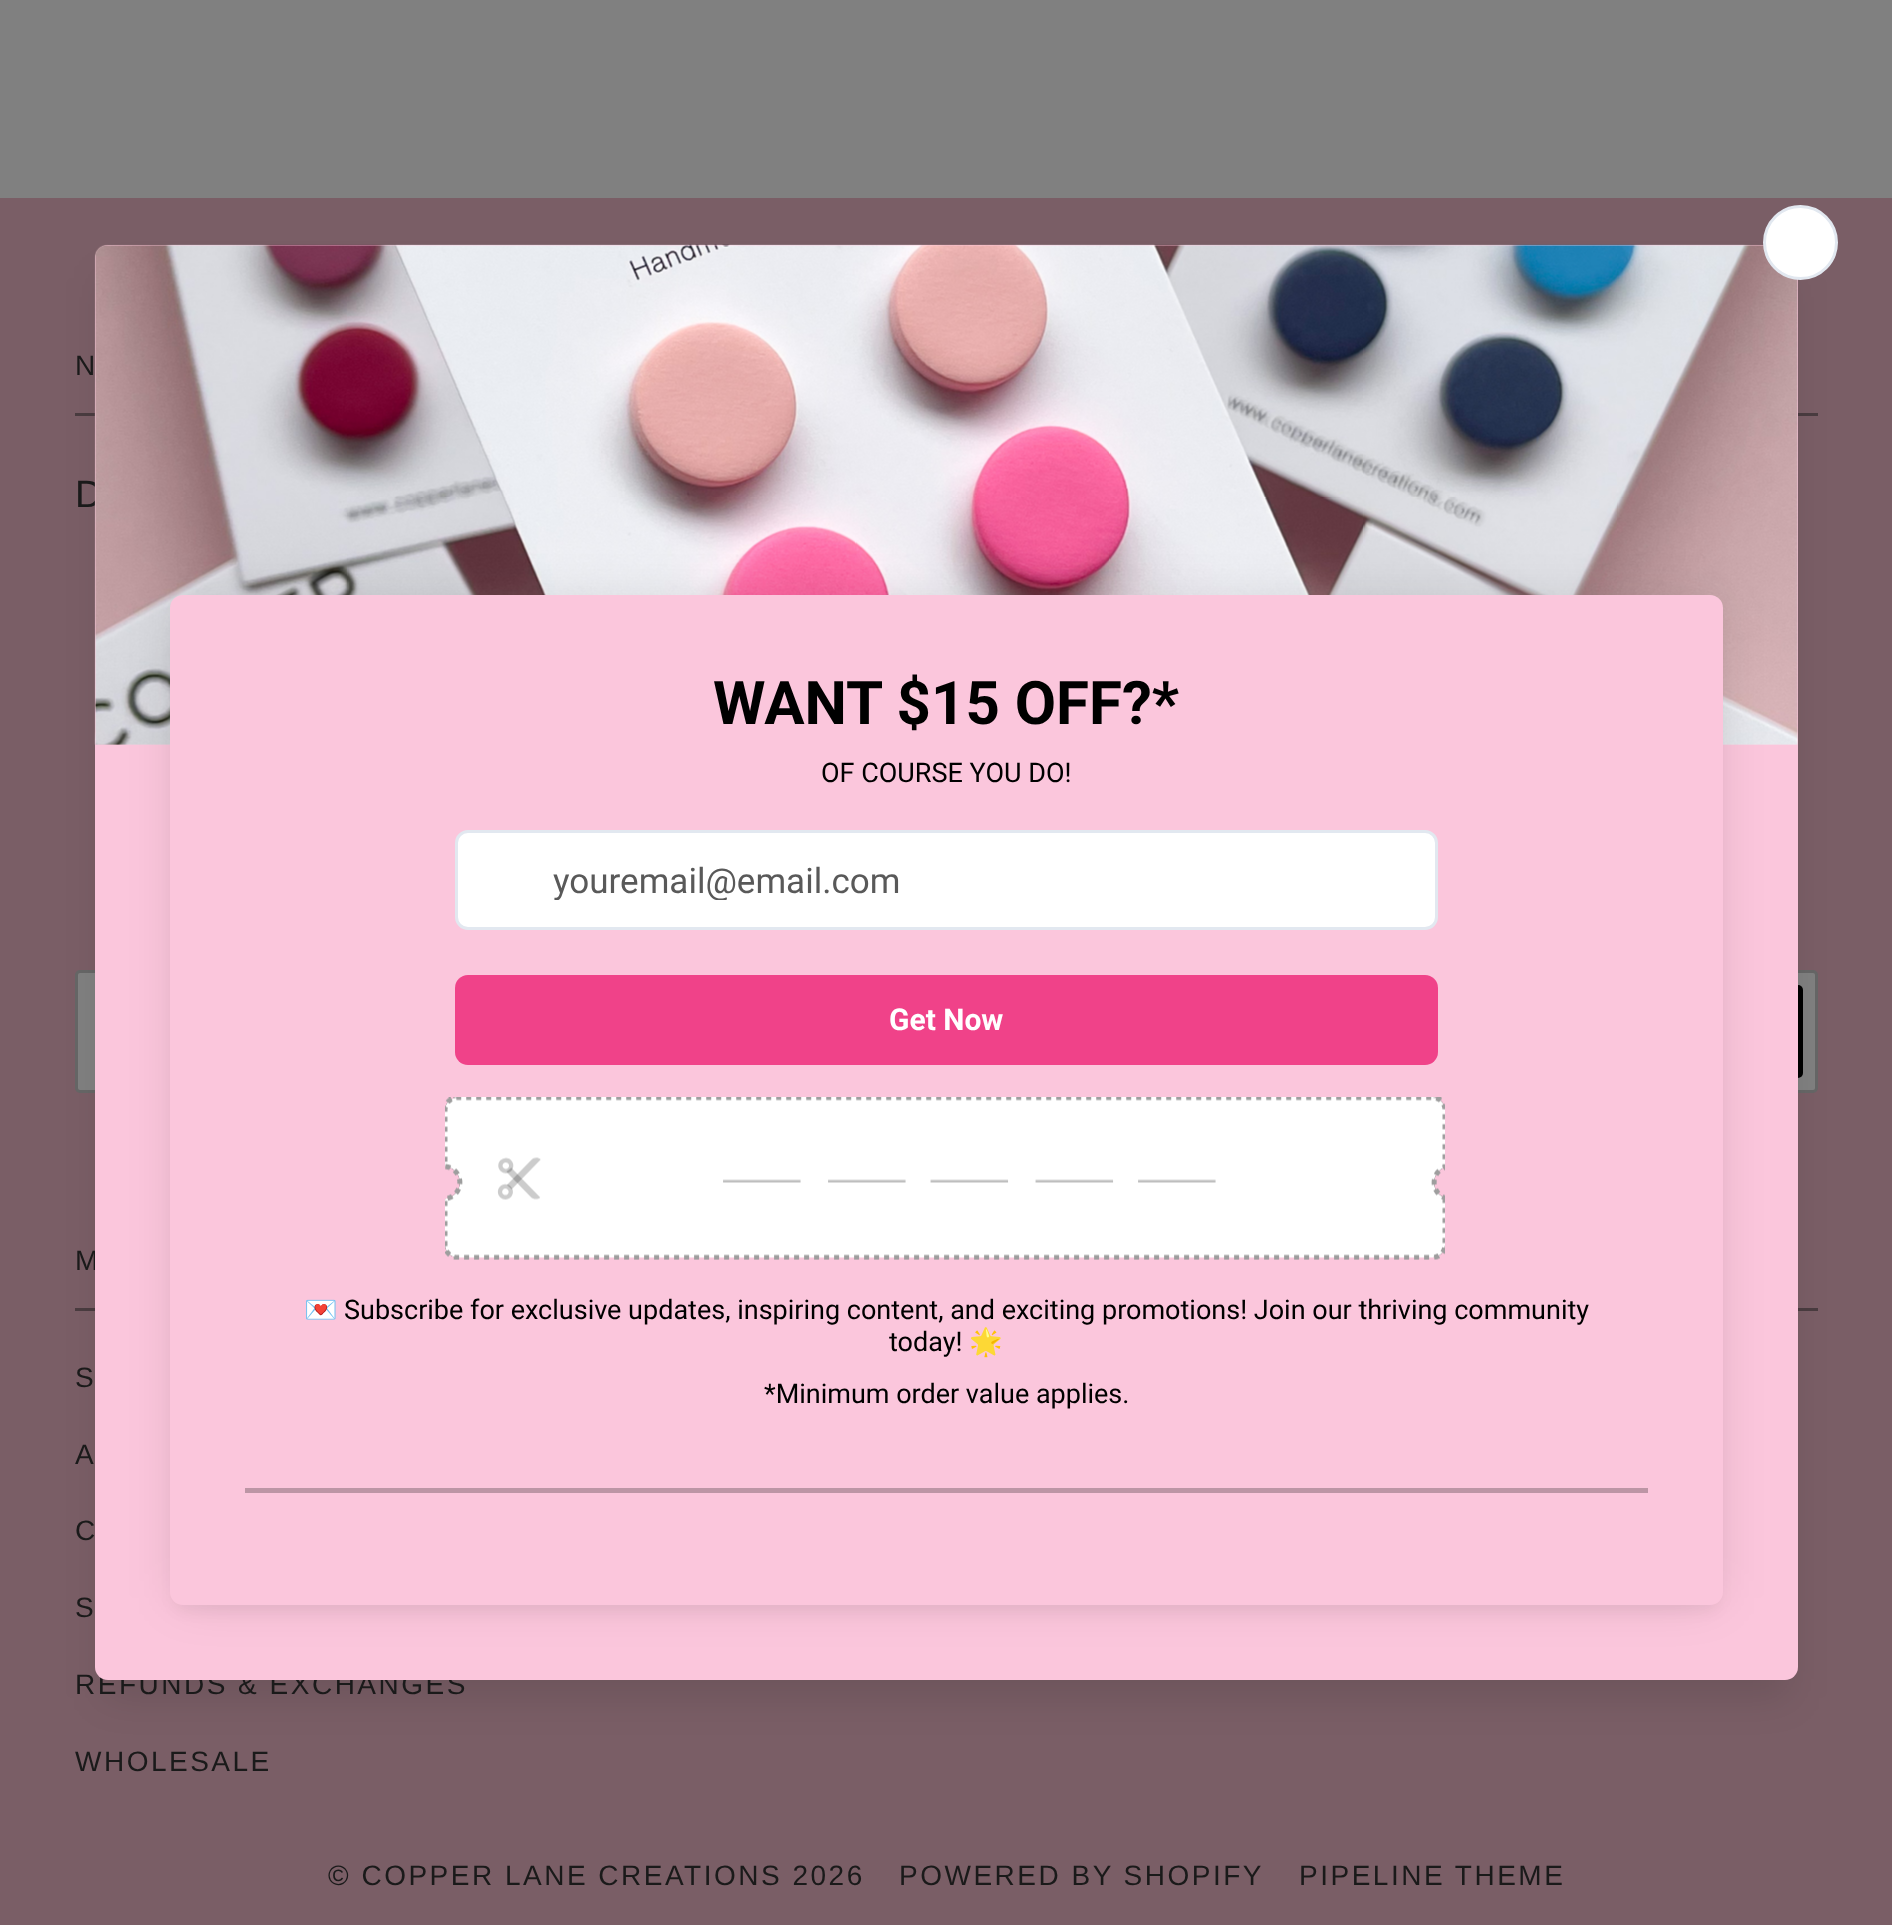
<?xml version="1.0" encoding="UTF-8"?>
<svg xmlns="http://www.w3.org/2000/svg" xmlns:xlink="http://www.w3.org/1999/xlink" width="1892" height="1925">
  <defs>
    <clipPath id="clip1"><rect x="463" y="860" width="967" height="40" /></clipPath>
  </defs>
  <rect width="100%" height="100%" fill="#808080" />
  <rect y="198" width="1892" height="1727" fill="#7a5e66" />
  <rect x="75" y="413" width="1743" height="3" fill="#4a3c40" />
  <rect x="76.5" y="971.5" width="1740" height="120" rx="3.5" fill="#808080" stroke="#666666" stroke-width="3" />
  <rect x="1568" y="985" width="235" height="93" rx="5" fill="#000000" />
  <rect x="75" y="1308" width="1743" height="3" fill="#4a3c40" />
  <rect x="103" y="278" width="1687" height="1420" rx="5" fill="#000000" fill-opacity="0.1" filter="blur(19px)" />
  <text x="75" y="375" style="font-family: Liberation Sans; font-size: 28px; letter-spacing: 2.5px; fill: #1a1a1a">N</text>
  <text x="75" y="507" style="font-family: Liberation Sans; font-size: 38px; fill: #1a1a1a">D</text>
  <text x="75" y="1270" style="font-family: Liberation Sans; font-size: 28px; letter-spacing: 2.5px; fill: #1a1a1a">M</text>
  <text x="75" y="1387" style="font-family: Liberation Sans; font-size: 28px; letter-spacing: 2.5px; fill: #1a1a1a">S</text>
  <text x="75" y="1464" style="font-family: Liberation Sans; font-size: 28px; letter-spacing: 2.5px; fill: #1a1a1a">A</text>
  <text x="75" y="1540" style="font-family: Liberation Sans; font-size: 28px; letter-spacing: 2.5px; fill: #1a1a1a">C</text>
  <text x="75" y="1617" style="font-family: Liberation Sans; font-size: 28px; letter-spacing: 2.5px; fill: #1a1a1a">S</text>
  <text x="75" y="1694" style="font-family: Liberation Sans; font-size: 28px; letter-spacing: 2.5px; fill: #1a1a1a">REFUNDS &amp; EXCHANGES</text>
  <text x="75" y="1771" style="font-family: Liberation Sans; font-size: 28px; letter-spacing: 2.5px; fill: #1a1a1a">WHOLESALE</text>
  <text x="328" y="1885" style="font-family: Liberation Sans; font-size: 28px; letter-spacing: 2.5px; fill: #1a1a1a">© COPPER LANE CREATIONS 2026</text>
  <text x="899" y="1885" style="font-family: Liberation Sans; font-size: 28px; letter-spacing: 2.5px; fill: #1a1a1a">POWERED BY SHOPIFY</text>
  <text x="1299" y="1885" style="font-family: Liberation Sans; font-size: 28px; letter-spacing: 2.5px; fill: #1a1a1a">PIPELINE THEME</text>
  <rect x="95" y="245" width="1703" height="1435" rx="13" fill="#fbc6dc" />
  <image x="94" y="244" width="1704" height="501" xlink:href="image1.png" />
  <circle cx="1800.5" cy="242.5" r="36" fill="#ffffff" stroke="#e2e8f0" stroke-width="3" />
  <rect x="175" y="610" width="1543" height="1000" rx="8" fill="#000000" fill-opacity="0.05" filter="blur(7.5px)" />
  <rect x="178" y="603" width="1537" height="995" rx="5" fill="#000000" fill-opacity="0.12" filter="blur(25px)" />
  <rect x="170" y="595" width="1553" height="1010" rx="13" fill="#fbc6dc" />
  <text x="713" y="724" style="font-family: Roboto; font-size: 60px; font-weight: bold; fill: #000000">WANT $15 OFF?*</text>
  <text x="821" y="782" style="font-family: Roboto; font-size: 27px; fill: #000000">OF COURSE YOU DO!</text>
  <rect x="456.5" y="831.5" width="980" height="97" rx="11.5" fill="#ffffff" stroke="#e2e8f0" stroke-width="3" />
  <g clip-path="url(#clip1)">
    <text x="553" y="893" style="font-family: Roboto; font-size: 35px; fill: #595959">youremail@email.com</text>
  </g>
  <rect x="455" y="975" width="983" height="90" rx="13" fill="#f04289" />
  <text x="889" y="1030" style="font-family: Roboto; font-size: 30px; font-weight: bold; fill: #ffffff">Get Now</text>
  <image x="445" y="1097" width="1000" height="163" xlink:href="image2.png" />
  <text x="304" y="1319" style="font-family: Noto Color Emoji; font-size: 27px; fill: #000000">💌</text>
  <text x="344" y="1319" style="font-family: Roboto; font-size: 27px; fill: #000000">Subscribe for exclusive updates, inspiring content, and exciting promotions! Join our thriving community</text>
  <text x="889" y="1351" style="font-family: Roboto; font-size: 27px; fill: #000000">today!</text>
  <text x="969" y="1351" style="font-family: Noto Color Emoji; font-size: 27px; fill: #000000">🌟</text>
  <text x="764" y="1403" style="font-family: Roboto; font-size: 27px; fill: #000000">*Minimum order value applies.</text>
  <rect x="245" y="1488" width="1403" height="5" fill="#bc95a5" />
</svg>
